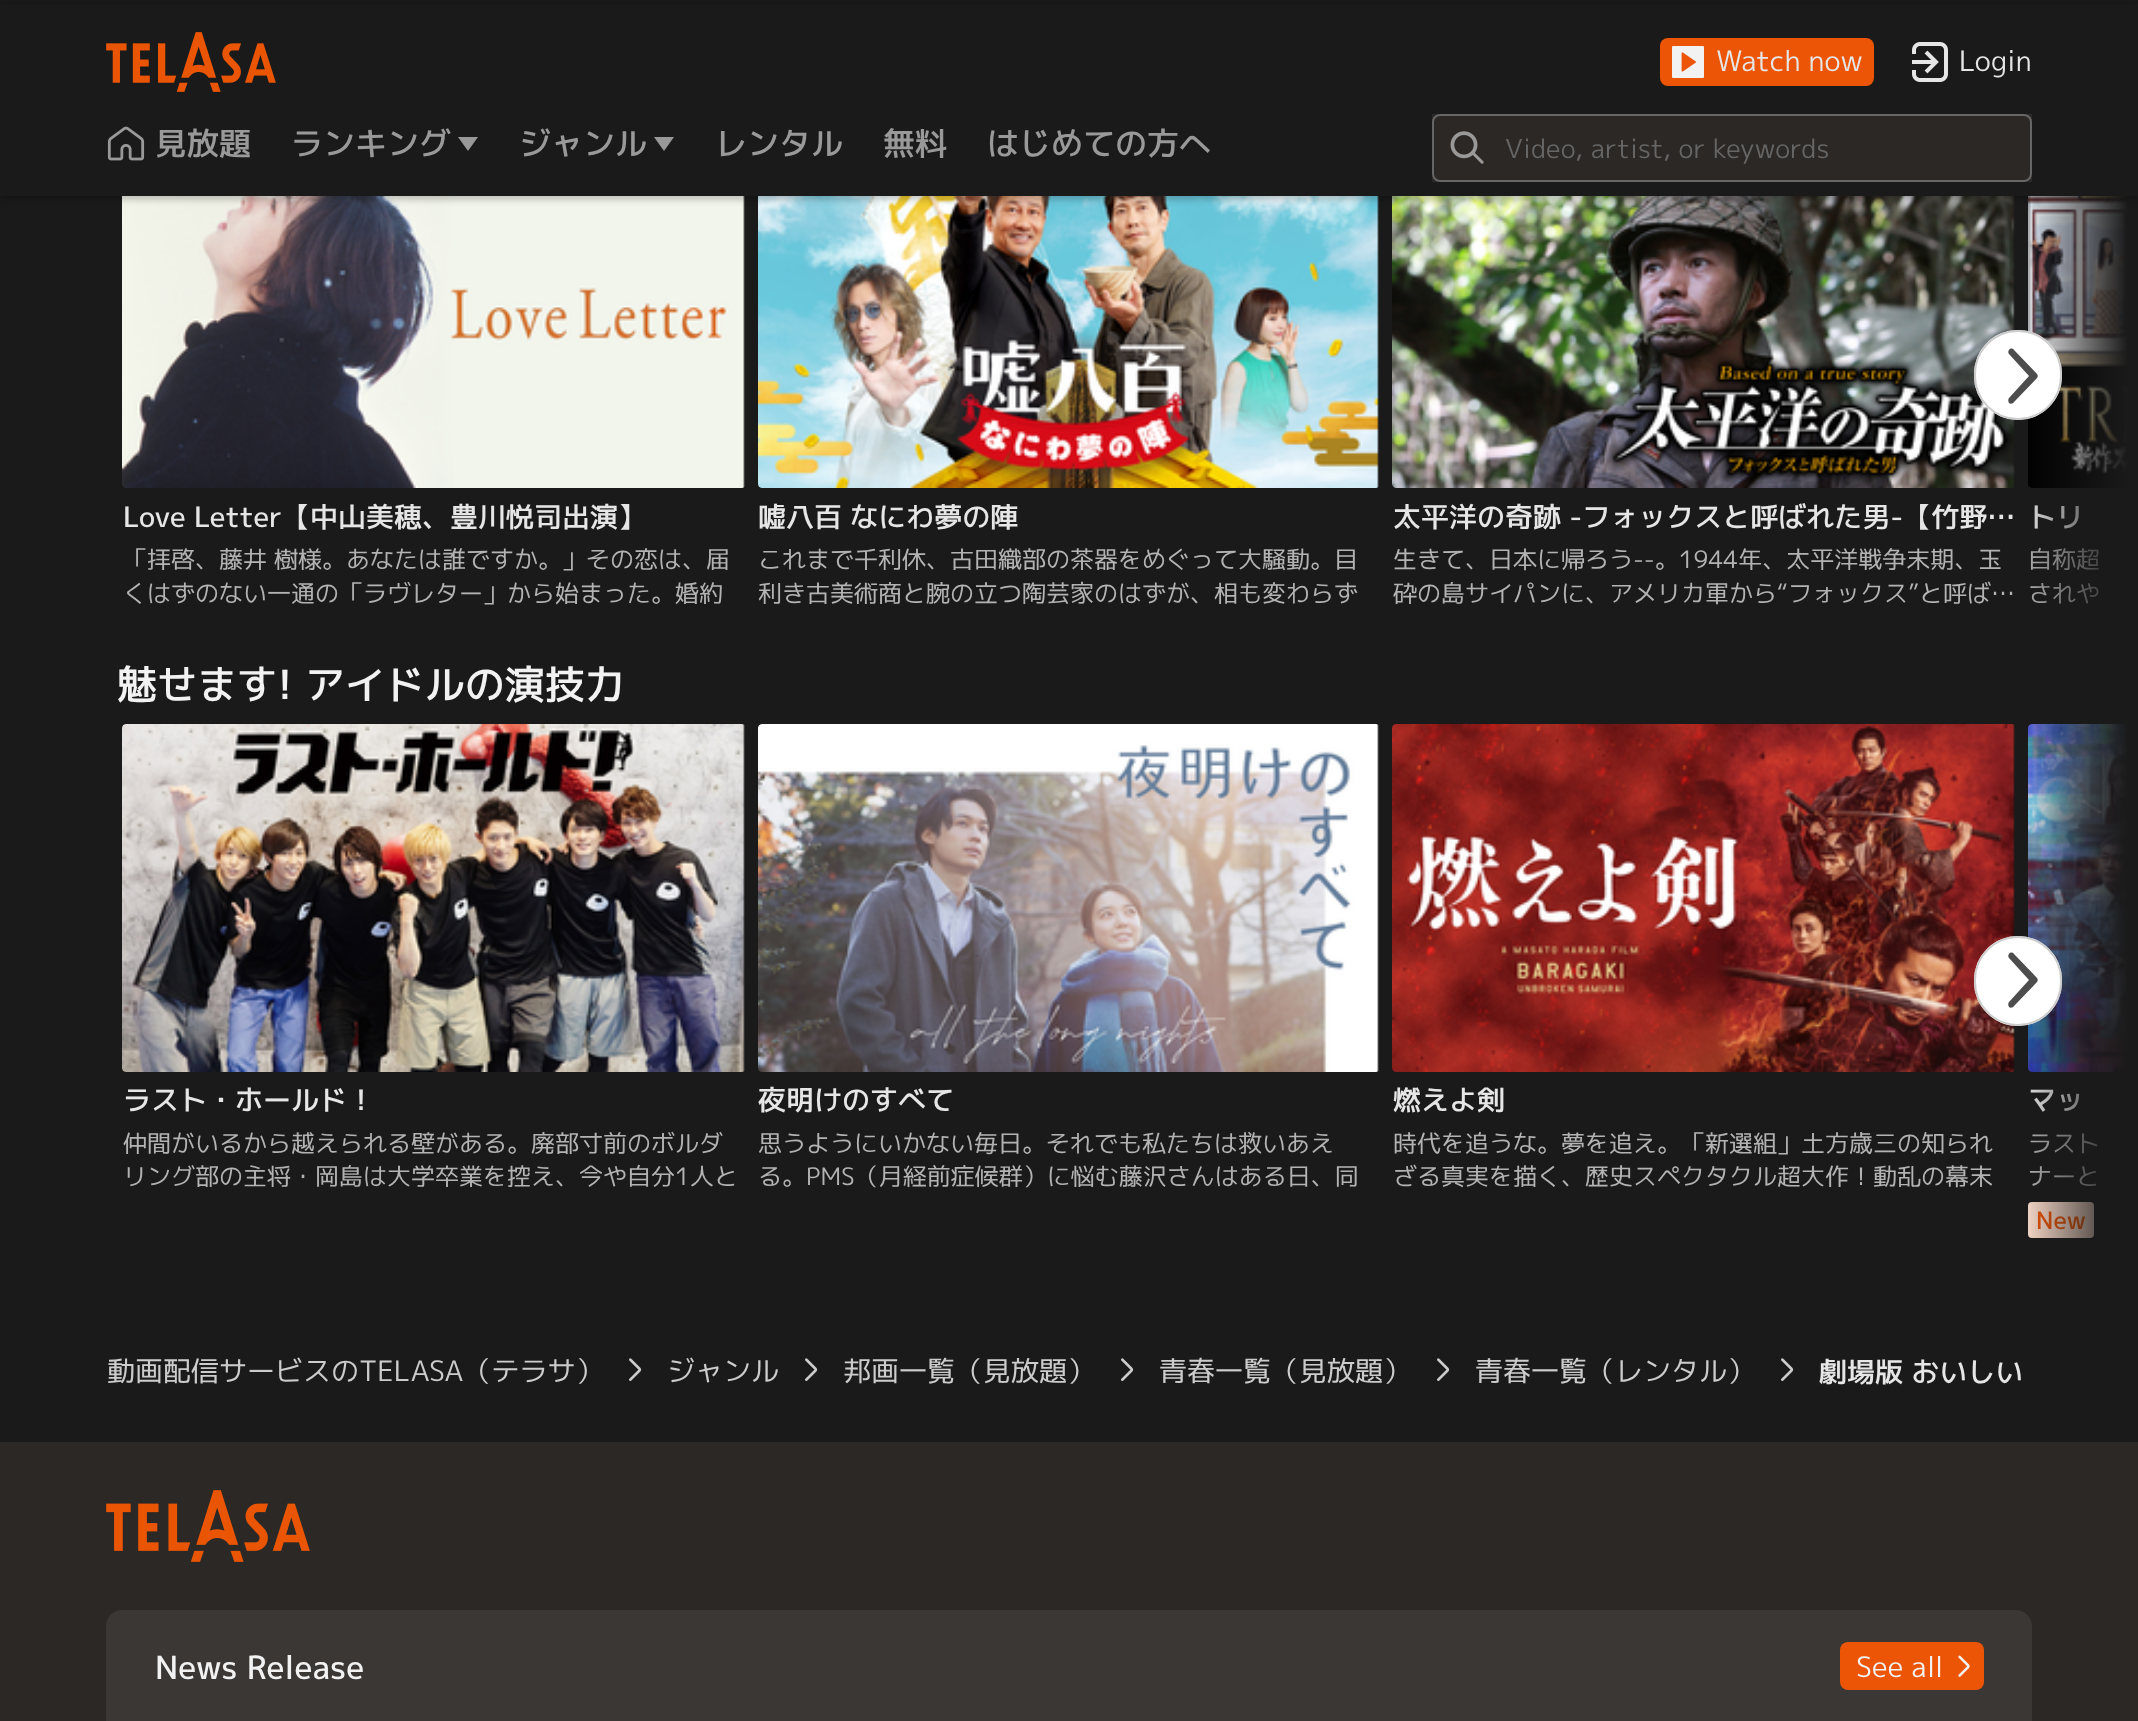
<?xml version="1.0" encoding="UTF-8"?>
<svg xmlns="http://www.w3.org/2000/svg" xmlns:xlink="http://www.w3.org/1999/xlink" width="2138" height="1721">
  <defs>
    <linearGradient id="g1" gradientUnits="userSpaceOnUse" x1="2128" y1="376" x2="2022" y2="376"><stop offset="0" stop-color="#1a1a1a" /><stop offset="1" stop-color="#1a1a1a" stop-opacity="0" /></linearGradient>
    <linearGradient id="g2" gradientUnits="userSpaceOnUse" x1="2128" y1="981" x2="2022" y2="981"><stop offset="0" stop-color="#1a1a1a" /><stop offset="1" stop-color="#1a1a1a" stop-opacity="0" /></linearGradient>
  </defs>
  <rect width="100%" height="100%" fill="#1a1a1a" />
  <image x="122" y="196" width="623" height="292" xlink:href="image6.png" />
  <image x="758" y="196" width="621" height="292" xlink:href="image7.png" />
  <image x="1392" y="196" width="623" height="292" xlink:href="image8.png" />
  <image x="2028" y="196" width="99" height="292" xlink:href="image9.png" />
  <image x="122" y="724" width="623" height="348" xlink:href="image10.png" />
  <image x="758" y="724" width="621" height="348" xlink:href="image11.png" />
  <image x="1392" y="724" width="623" height="348" xlink:href="image12.png" />
  <image x="2028" y="724" width="99" height="348" xlink:href="image13.png" />
  <rect x="2028" y="1202" width="66" height="36" rx="4" fill="#fbddcd" />
  <image x="629" y="1358" width="13" height="23" xlink:href="image14.png" />
  <image x="805" y="1358" width="13" height="23" xlink:href="image14.png" />
  <image x="1121" y="1358" width="13" height="23" xlink:href="image14.png" />
  <image x="1437" y="1358" width="13" height="23" xlink:href="image14.png" />
  <image x="1781" y="1358" width="13" height="23" xlink:href="image14.png" />
  <rect y="1442" width="2138" height="279" fill="#2b2826" />
  <image x="106" y="1490" width="204" height="72" xlink:href="image15.png" />
  <rect x="106" y="1610" width="1926" height="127" rx="16" fill="#3a3735" />
  <rect x="1840" y="1642" width="144" height="48" rx="8" fill="#eb5505" />
  <image x="1958" y="1655" width="12" height="22" xlink:href="image16.png" />
  <text x="123" y="527" style="font-family: 'M PLUS 1p'; font-size: 28px; font-weight: 500; fill: #e6e6e6">Love Letter【中山美穂、豊川悦司出演】</text>
  <text x="123" y="568" style="font-family: 'M PLUS 1p'; font-size: 24px; fill: #b3b3b3">「拝啓、藤井 樹様。あなたは誰ですか。」その恋は、届</text>
  <text x="123" y="602" style="font-family: 'M PLUS 1p'; font-size: 24px; fill: #b3b3b3">くはずのない一通の「ラヴレター」から始まった。婚約</text>
  <text x="758" y="527" style="font-family: 'M PLUS 1p'; font-size: 28px; font-weight: 500; fill: #e6e6e6">嘘八百 なにわ夢の陣</text>
  <text x="758" y="568" style="font-family: 'M PLUS 1p'; font-size: 24px; fill: #b3b3b3">これまで千利休、古田織部の茶器をめぐって大騒動。目</text>
  <text x="758" y="602" style="font-family: 'M PLUS 1p'; font-size: 24px; fill: #b3b3b3">利き古美術商と腕の立つ陶芸家のはずが、相も変わらず</text>
  <text x="1393" y="527" style="font-family: 'M PLUS 1p'; font-size: 28px; font-weight: 500; fill: #e6e6e6">太平洋の奇跡 -フォックスと呼ばれた男-【竹野…</text>
  <text x="1393" y="568" style="font-family: 'M PLUS 1p'; font-size: 24px; fill: #b3b3b3">生きて、日本に帰ろう--。1944年、太平洋戦争末期、玉</text>
  <text x="1393" y="602" style="font-family: 'M PLUS 1p'; font-size: 24px; fill: #b3b3b3">砕の島サイパンに、アメリカ軍から“フォックス”と呼ば…</text>
  <text x="2028" y="527" style="font-family: 'M PLUS 1p'; font-size: 28px; font-weight: 500; fill: #e6e6e6">トリ</text>
  <text x="2028" y="568" style="font-family: 'M PLUS 1p'; font-size: 24px; fill: #b3b3b3">自称超</text>
  <text x="2028" y="602" style="font-family: 'M PLUS 1p'; font-size: 24px; fill: #b3b3b3">されや</text>
  <rect x="2028" y="196" width="99" height="408" fill="url(#g1)" />
  <rect y="4" width="2138" height="196" fill="#000000" fill-opacity="0.2" filter="blur(3px)" />
  <rect y="4" width="2138" height="192" fill="#1a1a1a" />
  <rect x="1432" y="114" width="600" height="68" fill="#2b2826" />
  <rect x="1433" y="115" width="598" height="66" rx="7" fill="none" stroke="#666666" stroke-width="2" />
  <image x="1450" y="131" width="34" height="33" xlink:href="image5.png" />
  <text x="1505" y="158" style="font-family: 'M PLUS 1p'; font-size: 26px; fill: #666666">Video, artist, or keywords</text>
  <image x="1912" y="42" width="36" height="40" xlink:href="image3.png" />
  <text x="1959" y="71" style="font-family: 'M PLUS 1p'; font-size: 28px; fill: #e6e6e6">Login</text>
  <rect x="1660" y="38" width="214" height="48" rx="8" fill="#eb5505" />
  <image x="1672" y="46" width="32" height="32" xlink:href="image2.png" />
  <text x="1716" y="71" style="font-family: 'M PLUS 1p'; font-size: 28px; fill: #e6e6e6">Watch now</text>
  <image x="106" y="32" width="170" height="60" xlink:href="image1.png" />
  <path d="M 654 137 l 10 14 l 10 -14 z" fill="#999999" fill-rule="evenodd" />
  <path d="M 458 137 l 10 14 l 10 -14 z" fill="#999999" fill-rule="evenodd" />
  <image x="107" y="126" width="38" height="35" xlink:href="image4.png" />
  <text x="987" y="155" style="font-family: 'M PLUS 1p'; font-size: 32px; font-weight: 500; fill: #999999">はじめての方へ</text>
  <text x="883" y="155" style="font-family: 'M PLUS 1p'; font-size: 32px; font-weight: 500; fill: #999999">無料</text>
  <text x="715" y="155" style="font-family: 'M PLUS 1p'; font-size: 32px; font-weight: 500; fill: #999999">レンタル</text>
  <text x="519" y="155" style="font-family: 'M PLUS 1p'; font-size: 32px; font-weight: 500; fill: #999999">ジャンル</text>
  <text x="291" y="155" style="font-family: 'M PLUS 1p'; font-size: 32px; font-weight: 500; fill: #999999">ランキング</text>
  <text x="155" y="155" style="font-family: 'M PLUS 1p'; font-size: 32px; font-weight: 500; fill: #999999">見放題</text>
  <rect x="1974" y="330" width="88" height="90" rx="44" fill="#ffffff" />
  <path d="M 2009 354 c -1 -1 -1 -3 0 -4 c 1 -2 4 -2 5 0 l 23 24 c 1 1 1 3 0 4 l -23 24 c -1 2 -4 2 -5 1 c -1 -2 -1 -4 0 -5 l 20 -22 z" fill="#4d4d4d" />
  <rect x="1975" y="331" width="86" height="88" rx="43" fill="none" stroke="#cccccc" stroke-width="2" />
  <text x="117" y="699" style="font-family: 'M PLUS 1p'; font-size: 40px; font-weight: 500; fill: #f2f2f2">魅せます! アイドルの演技力</text>
  <text x="123" y="1110" style="font-family: 'M PLUS 1p'; font-size: 28px; font-weight: 500; fill: #e6e6e6">ラスト・ホールド！</text>
  <text x="123" y="1152" style="font-family: 'M PLUS 1p'; font-size: 24px; fill: #b3b3b3">仲間がいるから越えられる壁がある。廃部寸前のボルダ</text>
  <text x="123" y="1185" style="font-family: 'M PLUS 1p'; font-size: 24px; fill: #b3b3b3">リング部の主将・岡島は大学卒業を控え、今や自分1人と</text>
  <text x="758" y="1110" style="font-family: 'M PLUS 1p'; font-size: 28px; font-weight: 500; fill: #e6e6e6">夜明けのすべて</text>
  <text x="758" y="1152" style="font-family: 'M PLUS 1p'; font-size: 24px; fill: #b3b3b3">思うようにいかない毎日。それでも私たちは救いあえ</text>
  <text x="758" y="1185" style="font-family: 'M PLUS 1p'; font-size: 24px; fill: #b3b3b3">る。PMS（月経前症候群）に悩む藤沢さんはある日、同</text>
  <text x="1393" y="1110" style="font-family: 'M PLUS 1p'; font-size: 28px; font-weight: 500; fill: #e6e6e6">燃えよ剣</text>
  <text x="1393" y="1152" style="font-family: 'M PLUS 1p'; font-size: 24px; fill: #b3b3b3">時代を追うな。夢を追え。「新選組」土方歳三の知られ</text>
  <text x="1393" y="1185" style="font-family: 'M PLUS 1p'; font-size: 24px; fill: #b3b3b3">ざる真実を描く、歴史スペクタクル超大作！動乱の幕末</text>
  <text x="2028" y="1110" style="font-family: 'M PLUS 1p'; font-size: 28px; font-weight: 500; fill: #e6e6e6">マッ</text>
  <text x="2028" y="1152" style="font-family: 'M PLUS 1p'; font-size: 24px; fill: #b3b3b3">ラスト</text>
  <text x="2028" y="1185" style="font-family: 'M PLUS 1p'; font-size: 24px; fill: #b3b3b3">ナーと</text>
  <text x="2036" y="1229" style="font-family: 'M PLUS 1p'; font-size: 24px; font-weight: 500; fill: #eb5506">New</text>
  <rect x="2028" y="724" width="99" height="514" fill="url(#g2)" />
  <rect x="1974" y="936" width="88" height="90" rx="44" fill="#ffffff" />
  <path d="M 2009 958 c -1 -1 -1 -3 0 -4 c 1 -2 4 -2 5 0 l 23 24 c 1 1 1 3 0 4 l -23 24 c -1 2 -4 2 -5 1 c -1 -2 -1 -4 0 -5 l 20 -22 z" fill="#4d4d4d" />
  <rect x="1975" y="937" width="86" height="88" rx="43" fill="none" stroke="#cccccc" stroke-width="2" />
  <text x="107" y="1381" style="font-family: 'M PLUS 1p'; font-size: 28px; fill: #cccccc">動画配信サービスのTELASA（テラサ）</text>
  <text x="667" y="1381" style="font-family: 'M PLUS 1p'; font-size: 28px; fill: #cccccc">ジャンル</text>
  <text x="843" y="1381" style="font-family: 'M PLUS 1p'; font-size: 28px; fill: #cccccc">邦画一覧（見放題）</text>
  <text x="1159" y="1381" style="font-family: 'M PLUS 1p'; font-size: 28px; fill: #cccccc">青春一覧（見放題）</text>
  <text x="1475" y="1381" style="font-family: 'M PLUS 1p'; font-size: 28px; fill: #cccccc">青春一覧（レンタル）</text>
  <text x="1819" y="1382" style="font-family: 'M PLUS 1p'; font-size: 28px; font-weight: 500; fill: #e6e6e6">劇場版 おいしい</text>
  <text x="155" y="1679" style="font-family: 'M PLUS 1p'; font-size: 32px; font-weight: 500; fill: #f2f2f2">News Release</text>
  <text x="1856" y="1677" style="font-family: 'M PLUS 1p'; font-size: 28px; fill: #f2f2f2">See all</text>
</svg>
